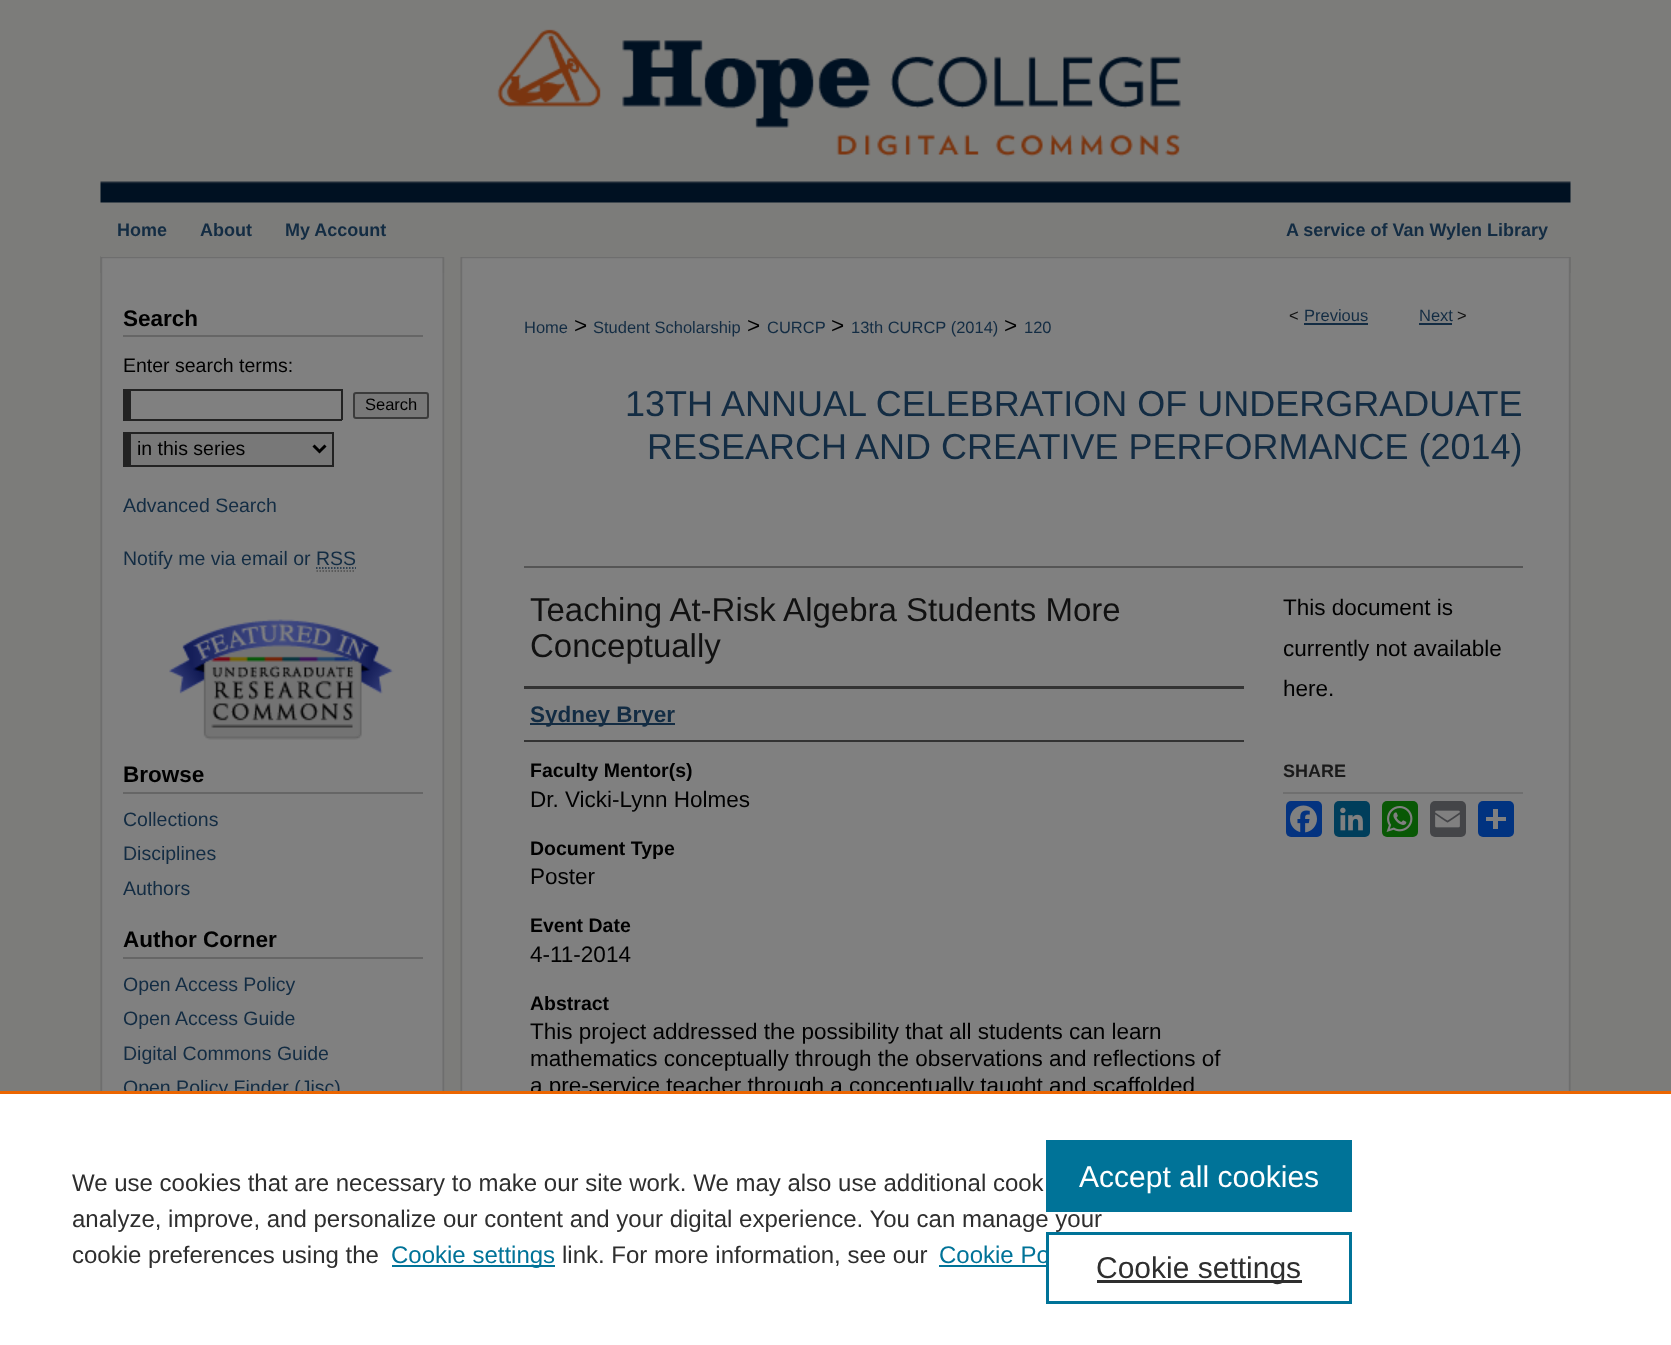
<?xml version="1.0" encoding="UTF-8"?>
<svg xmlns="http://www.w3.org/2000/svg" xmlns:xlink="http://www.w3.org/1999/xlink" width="1671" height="1345">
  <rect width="100%" height="100%" fill="#7c7c7a" />
  <image x="100" y="29" width="1471" height="174" xlink:href="image1.png" />
  <image x="100" y="256" width="1471" height="835" xlink:href="image2.png" />
  <rect x="101" y="256" width="1470" height="1" fill="#7c7c7a" />
  <rect x="123" y="335" width="300" height="2" fill="#666666" />
  <rect x="123" y="389" width="219" height="2" fill="#222222" />
  <rect x="341" y="389" width="2" height="31" fill="#222222" />
  <rect x="123" y="419" width="219" height="2" fill="#222222" />
  <rect x="123" y="389" width="8" height="31" fill="#222222" />
  <rect x="354" y="393" width="74" height="25" rx="2" fill="#787878" stroke="#3b3b3b" stroke-width="2" />
  <rect x="131" y="434" width="201" height="31" fill="#787878" />
  <rect x="123" y="432" width="210" height="2" fill="#222222" />
  <rect x="332" y="432" width="2" height="35" fill="#222222" />
  <rect x="123" y="465" width="210" height="2" fill="#222222" />
  <rect x="123" y="432" width="8" height="35" fill="#222222" />
  <path d="M 313.5 445.5 l 6 6 l 6 -6" fill="none" stroke="#000000" stroke-width="3" />
  <path d="M 316 568 h 40" fill="none" stroke="#132c43" stroke-width="1.5" stroke-dasharray="1.5 1.5" />
  <path d="M 316.5 571 h 39" fill="none" stroke="#4d4d4d" stroke-width="1.5" stroke-dasharray="1.5 1.5" />
  <image x="169" y="619" width="225" height="121" xlink:href="image3.png" />
  <rect x="123" y="792" width="300" height="2" fill="#666666" />
  <rect x="123" y="957" width="300" height="2" fill="#666666" />
  <rect x="1304" y="323" width="64" height="2" fill="#132c43" />
  <rect x="1419" y="323" width="33" height="2" fill="#132c43" />
  <rect x="524" y="566" width="999" height="2" fill="#555555" />
  <rect x="524" y="686" width="720" height="3" fill="#333333" />
  <rect x="524" y="740" width="720" height="2" fill="#333333" />
  <rect x="530" y="723" width="145" height="2" fill="#132c43" />
  <rect x="1283" y="792" width="240" height="2" fill="#6f6f6f" />
  <rect x="1286" y="801" width="36" height="36" rx="5" fill="#043380" />
  <image x="1290" y="805" width="27" height="28" xlink:href="image4.png" />
  <rect x="1334" y="801" width="36" height="36" rx="5" fill="#003e5b" />
  <image x="1340" y="807" width="23" height="24" xlink:href="image5.png" />
  <rect x="1382" y="801" width="36" height="36" rx="5" fill="#095805" />
  <image x="1386" y="806" width="27" height="26" xlink:href="image6.png" />
  <rect x="1430" y="801" width="36" height="36" rx="5" fill="#444548" />
  <image x="1435" y="810" width="25" height="18" xlink:href="image7.png" />
  <rect x="1478" y="801" width="36" height="36" rx="5" fill="#013380" />
  <rect x="1493" y="809" width="5" height="20" fill="#808080" />
  <rect x="1486" y="817" width="20" height="4" fill="#808080" />
  <text x="117" y="236" style="font-family: Liberation Sans; font-size: 18px; font-weight: bold; fill: #132c43">Home</text>
  <text x="200" y="236" style="font-family: Liberation Sans; font-size: 18px; font-weight: bold; fill: #132c43">About</text>
  <text x="285" y="236" style="font-family: Liberation Sans; font-size: 18px; font-weight: bold; fill: #132c43">My Account</text>
  <text x="1286" y="236" style="font-family: Liberation Sans; font-size: 18px; font-weight: bold; fill: #132c43">A service of Van Wylen Library</text>
  <text x="123" y="326" style="font-family: Liberation Sans; font-size: 22.5px; font-weight: bold; fill: #000000">Search</text>
  <text x="123" y="372" style="font-family: Liberation Sans; font-size: 19.5px; fill: #000000">Enter search terms:</text>
  <text x="365" y="410" style="font-family: Liberation Sans; font-size: 16.5px; fill: #000000">Search</text>
  <text x="137" y="455" style="font-family: Liberation Sans; font-size: 19.5px; fill: #000000">in this series</text>
  <text x="123" y="512" style="font-family: Liberation Sans; font-size: 19.5px; fill: #132c43">Advanced Search</text>
  <text x="123" y="565" style="font-family: Liberation Sans; font-size: 19.5px; fill: #132c43">Notify me via email or RSS</text>
  <text x="123" y="782" style="font-family: Liberation Sans; font-size: 22.5px; font-weight: bold; fill: #000000">Browse</text>
  <text x="123" y="826" style="font-family: Liberation Sans; font-size: 19.5px; fill: #132c43">Collections</text>
  <text x="123" y="860" style="font-family: Liberation Sans; font-size: 19.5px; fill: #132c43">Disciplines</text>
  <text x="123" y="895" style="font-family: Liberation Sans; font-size: 19.5px; fill: #132c43">Authors</text>
  <text x="123" y="947" style="font-family: Liberation Sans; font-size: 22.5px; font-weight: bold; fill: #000000">Author Corner</text>
  <text x="123" y="991" style="font-family: Liberation Sans; font-size: 19.5px; fill: #132c43">Open Access Policy</text>
  <text x="123" y="1025" style="font-family: Liberation Sans; font-size: 19.5px; fill: #132c43">Open Access Guide</text>
  <text x="123" y="1060" style="font-family: Liberation Sans; font-size: 19.5px; fill: #132c43">Digital Commons Guide</text>
  <text x="123" y="1094" style="font-family: Liberation Sans; font-size: 19.5px; fill: #132c43">Open Policy Finder (Jisc)</text>
  <text x="1289" y="321" style="font-family: Liberation Sans; font-size: 16.5px; fill: #111111">&lt;</text>
  <text x="1304" y="321" style="font-family: Liberation Sans; font-size: 16.5px; fill: #132c43">Previous</text>
  <text x="1419" y="321" style="font-family: Liberation Sans; font-size: 16.5px; fill: #132c43">Next</text>
  <text x="1457" y="321" style="font-family: Liberation Sans; font-size: 16.5px; fill: #111111">&gt;</text>
  <text x="524" y="333" style="font-family: Liberation Sans; font-size: 16.5px; fill: #132c43">Home</text>
  <text x="574" y="333" style="font-family: Liberation Sans; font-size: 22.5px; fill: #000000">&gt;</text>
  <text x="593" y="333" style="font-family: Liberation Sans; font-size: 16.5px; fill: #132c43">Student Scholarship</text>
  <text x="747" y="333" style="font-family: Liberation Sans; font-size: 22.5px; fill: #000000">&gt;</text>
  <text x="767" y="333" style="font-family: Liberation Sans; font-size: 16.5px; fill: #132c43">CURCP</text>
  <text x="831" y="333" style="font-family: Liberation Sans; font-size: 22.5px; fill: #000000">&gt;</text>
  <text x="851" y="333" style="font-family: Liberation Sans; font-size: 16.5px; fill: #132c43">13th CURCP (2014)</text>
  <text x="1004" y="333" style="font-family: Liberation Sans; font-size: 22.5px; fill: #000000">&gt;</text>
  <text x="1024" y="333" style="font-family: Liberation Sans; font-size: 16.5px; fill: #132c43">120</text>
  <text x="625" y="416" style="font-family: Liberation Sans; font-size: 36px; fill: #132c43">13TH ANNUAL CELEBRATION OF UNDERGRADUATE</text>
  <text x="647" y="459" style="font-family: Liberation Sans; font-size: 36px; fill: #132c43">RESEARCH AND CREATIVE PERFORMANCE (2014)</text>
  <text x="530" y="621" style="font-family: Liberation Sans; font-size: 33px; fill: #111111">Teaching At-Risk Algebra Students More</text>
  <text x="530" y="657" style="font-family: Liberation Sans; font-size: 33px; fill: #111111">Conceptually</text>
  <text x="530" y="722" style="font-family: Liberation Sans; font-size: 22.5px; font-weight: bold; fill: #132c43">Sydney Bryer</text>
  <text x="530" y="777" style="font-family: Liberation Sans; font-size: 19.5px; font-weight: bold; fill: #000000">Faculty Mentor(s)</text>
  <text x="530" y="807" style="font-family: Liberation Sans; font-size: 22.5px; fill: #000000">Dr. Vicki-Lynn Holmes</text>
  <text x="530" y="855" style="font-family: Liberation Sans; font-size: 19.5px; font-weight: bold; fill: #000000">Document Type</text>
  <text x="530" y="884" style="font-family: Liberation Sans; font-size: 22.5px; fill: #000000">Poster</text>
  <text x="530" y="932" style="font-family: Liberation Sans; font-size: 19.5px; font-weight: bold; fill: #000000">Event Date</text>
  <text x="530" y="962" style="font-family: Liberation Sans; font-size: 22.5px; fill: #000000">4-11-2014</text>
  <text x="530" y="1010" style="font-family: Liberation Sans; font-size: 19.5px; font-weight: bold; fill: #000000">Abstract</text>
  <text x="530" y="1039" style="font-family: Liberation Sans; font-size: 22.5px; fill: #000000">This project addressed the possibility that all students can learn</text>
  <text x="530" y="1066" style="font-family: Liberation Sans; font-size: 22.5px; fill: #000000">mathematics conceptually through the observations and reflections of</text>
  <text x="530" y="1093" style="font-family: Liberation Sans; font-size: 22.5px; fill: #000000">a pre-service teacher through a conceptually taught and scaffolded</text>
  <text x="1283" y="615" style="font-family: Liberation Sans; font-size: 22.5px; fill: #000000">This document is</text>
  <text x="1283" y="656" style="font-family: Liberation Sans; font-size: 22.5px; fill: #000000">currently not available</text>
  <text x="1283" y="696" style="font-family: Liberation Sans; font-size: 22.5px; fill: #000000">here.</text>
  <text x="1283" y="777" style="font-family: Liberation Sans; font-size: 18px; font-weight: bold; fill: #1a1a1a">SHARE</text>
  <rect y="1094" width="1671" height="251" fill="#ffffff" />
  <rect y="1091" width="1671" height="3" fill="#eb6500" />
  <text x="72" y="1191" style="font-family: Liberation Sans; font-size: 24px; fill: #2e2e2e">We use cookies that are necessary to make our site work. We may also use additional cook</text>
  <text x="72" y="1227" style="font-family: Liberation Sans; font-size: 24px; fill: #2e2e2e">analyze, improve, and personalize our content and your digital experience. You can manage your</text>
  <text x="72" y="1263" style="font-family: Liberation Sans; font-size: 24px; fill: #2e2e2e">cookie preferences using the</text>
  <rect x="392" y="1265" width="163" height="2" fill="#007398" />
  <text x="391" y="1263" style="font-family: Liberation Sans; font-size: 24px; fill: #007398">Cookie settings</text>
  <text x="562" y="1263" style="font-family: Liberation Sans; font-size: 24px; fill: #2e2e2e">link. For more information, see our</text>
  <text x="939" y="1263" style="font-family: Liberation Sans; font-size: 24px; fill: #007398">Cookie Po</text>
  <rect x="939" y="1265" width="107" height="2" fill="#007398" />
  <rect x="1046" y="1140" width="306" height="72" fill="#007398" />
  <text x="1079" y="1187" style="font-family: Liberation Sans; font-size: 30px; fill: #ffffff">Accept all cookies</text>
  <rect x="1047.5" y="1233.5" width="303" height="69" fill="none" stroke="#007398" stroke-width="3" />
  <rect x="1097" y="1280" width="205" height="3" fill="#2e2e2e" />
  <text x="1096" y="1278" style="font-family: Liberation Sans; font-size: 30px; fill: #2e2e2e">Cookie settings</text>
</svg>
